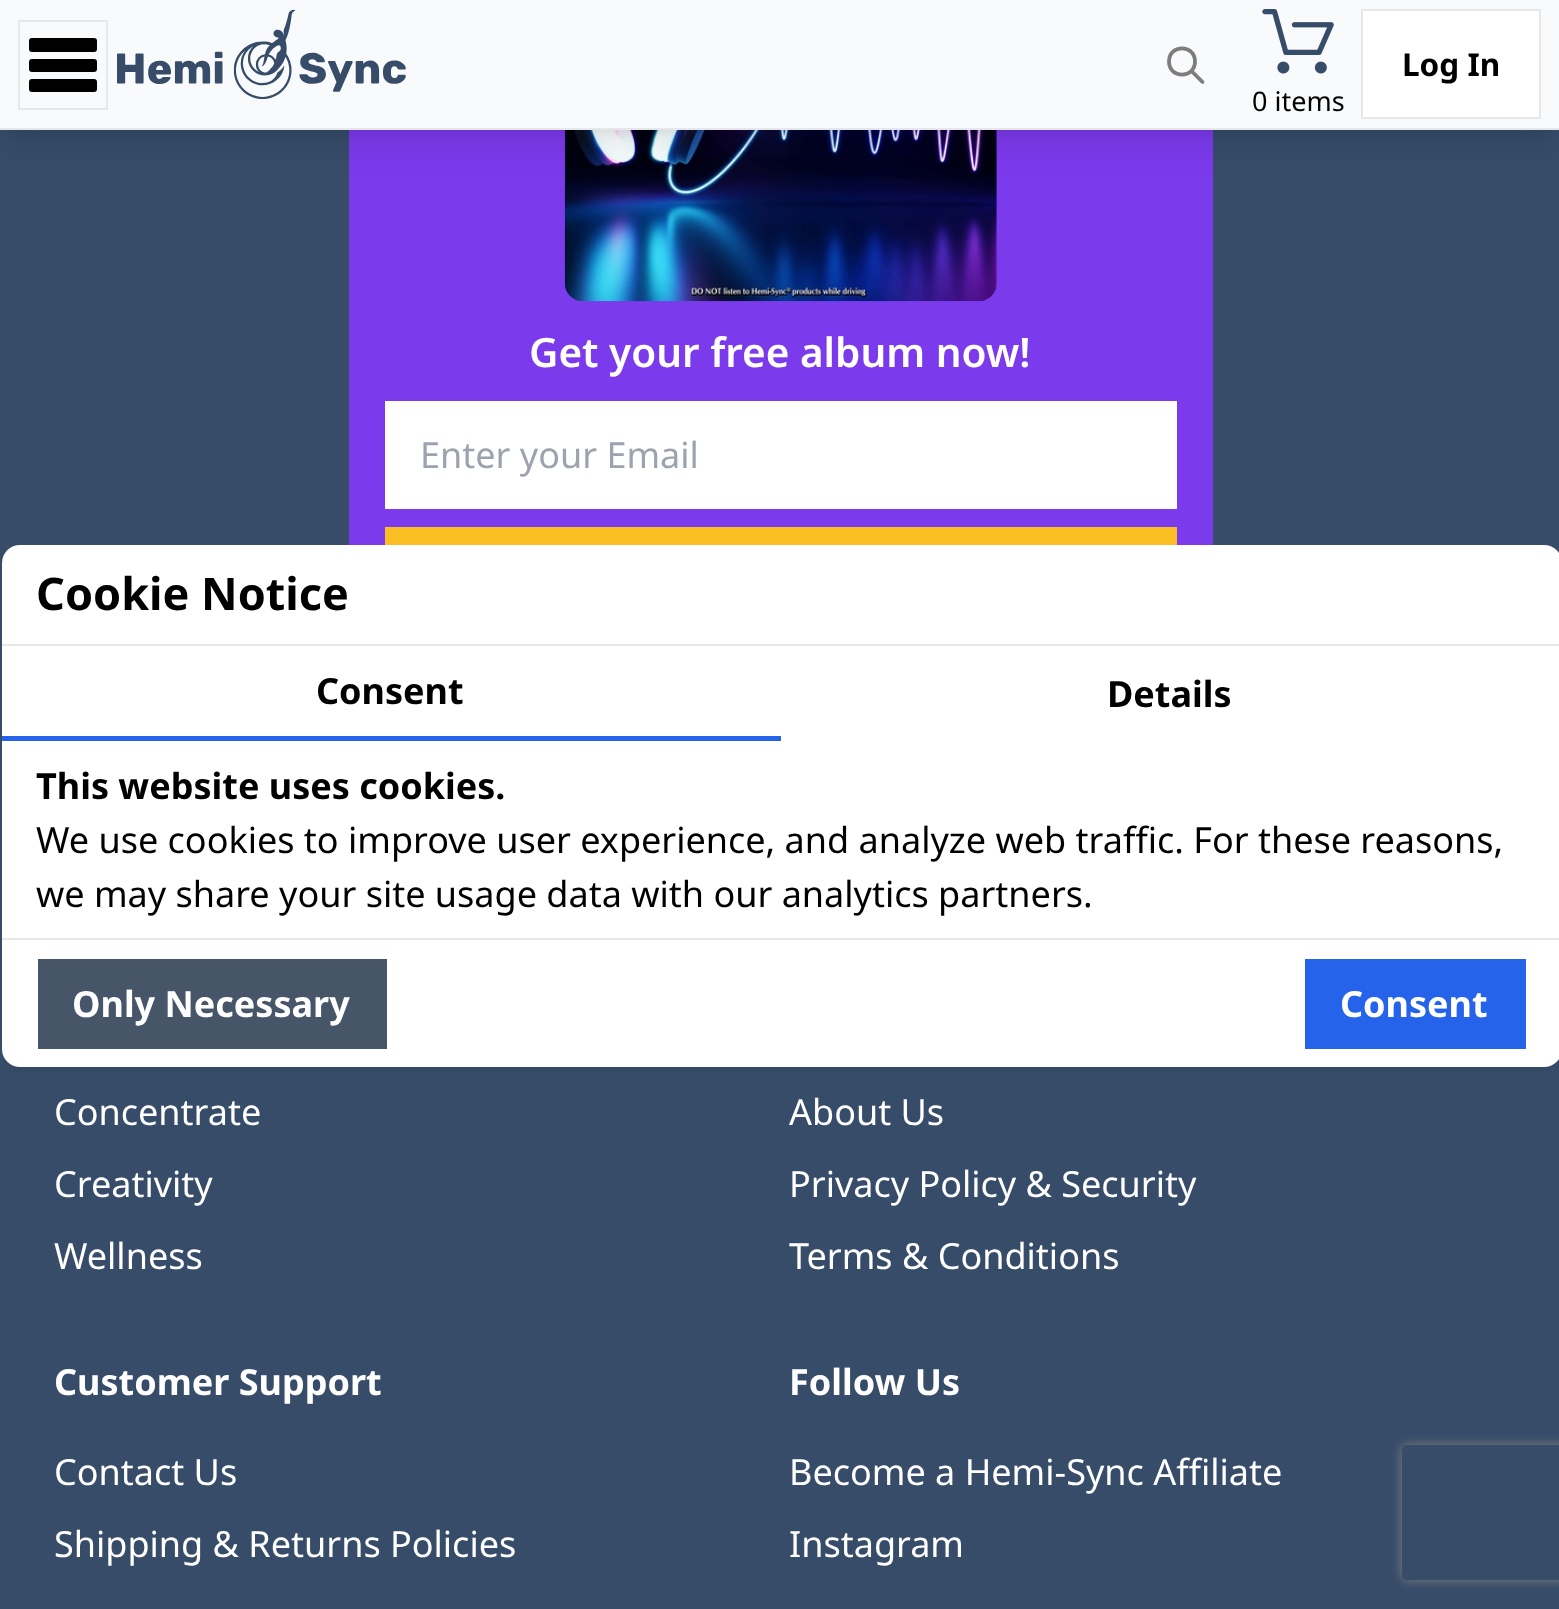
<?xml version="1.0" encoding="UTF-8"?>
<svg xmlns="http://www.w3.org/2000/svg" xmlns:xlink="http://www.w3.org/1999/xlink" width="1559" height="1609">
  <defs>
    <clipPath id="clip1"><path d="M 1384 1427 h 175 v 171 h -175 z m 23 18 h 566 c 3 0 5 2 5 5 v 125 c 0 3 -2 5 -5 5 h -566 c -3 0 -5 -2 -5 -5 v -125 c 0 -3 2 -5 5 -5 z" clip-rule="evenodd" /></clipPath>
  </defs>
  <rect width="100%" height="100%" fill="#364c69" />
  <rect x="349" y="130" width="864" height="415" fill="#7c3aed" />
  <image x="564" y="130" width="433" height="172" xlink:href="image3.png" />
  <rect x="9" y="18" width="1541" height="110" fill="#000000" fill-opacity="0.1" filter="blur(7px)" />
  <rect x="7" y="29" width="1546" height="115" fill="#000000" fill-opacity="0.1" filter="blur(17px)" />
  <rect width="1559" height="128" fill="#f9fafb" />
  <rect y="128" width="1559" height="2" fill="#e5e7eb" />
  <rect x="19" y="21" width="88" height="88" fill="none" stroke="#e5e7eb" stroke-width="2" />
  <rect x="29" y="38" width="68" height="14" rx="3" fill="#000000" />
  <rect x="29" y="59" width="68" height="13" rx="3" fill="#000000" />
  <rect x="29" y="79" width="68" height="13" rx="3" fill="#000000" />
  <image x="117" y="9" width="289" height="91" xlink:href="image1.png" />
  <path d="M 1202.5 82 l -11 -11 m 3.5 -9.5 c 0 17.5 -26 17.5 -26 0 c 0 -17.5 26 -17.5 26 0 z" fill="none" stroke="#7d7d7e" stroke-width="3.8" stroke-linecap="round" stroke-linejoin="round" />
  <rect x="1362" y="10" width="178" height="108" fill="#ffffff" stroke="#e5e7eb" stroke-width="2" />
  <image x="1262" y="9" width="72" height="65" xlink:href="image2.png" />
  <rect x="385" y="401" width="792" height="108" fill="#ffffff" />
  <rect x="385" y="527" width="792" height="18" fill="#fbbf24" />
  <rect x="7" y="554" width="1550" height="513" rx="14" fill="#000000" fill-opacity="0.1" filter="blur(4.5px)" />
  <rect x="2" y="545" width="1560" height="522" rx="18" fill="#ffffff" />
  <rect x="2" y="644" width="1557" height="2" fill="#e5e7eb" />
  <rect x="2" y="736" width="779" height="5" fill="#2563eb" />
  <rect x="2" y="938" width="1557" height="2" fill="#e5e7eb" />
  <rect x="38" y="959" width="349" height="90" fill="#475569" />
  <rect x="1305" y="959" width="221" height="90" fill="#2563eb" />
  <g clip-path="url(#clip1)">
    <rect x="1402" y="1445" width="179" height="135" rx="5" fill="#808080" filter="blur(5.5px)" />
  </g>
  <text x="1402" y="76" style="font-family: Noto Sans; font-size: 31.5px; font-weight: bold; fill: #000000">Log In</text>
  <text x="1252" y="111" style="font-family: Noto Sans; font-size: 27px; fill: #000000">0 items</text>
  <text x="529" y="367" style="font-family: Noto Sans; font-size: 40.5px; font-weight: 600; fill: #ffffff">Get your free album now!</text>
  <text x="420" y="468" style="font-family: Noto Sans; font-size: 36px; fill: #9ca3af">Enter your Email</text>
  <text x="36" y="610" style="font-family: Noto Sans; font-size: 45px; font-weight: bold; fill: #000000">Cookie Notice</text>
  <text x="316" y="704" style="font-family: Noto Sans; font-size: 36px; font-weight: bold; fill: #000000">Consent</text>
  <text x="1107" y="707" style="font-family: Noto Sans; font-size: 36px; font-weight: bold; fill: #000000">Details</text>
  <text x="36" y="799" style="font-family: Noto Sans; font-size: 36px; font-weight: bold; fill: #000000">This website uses cookies.</text>
  <text x="36" y="853" style="font-family: Noto Sans; font-size: 36px; fill: #000000">We use cookies to improve user experience, and analyze web traffic. For these reasons,</text>
  <text x="36" y="907" style="font-family: Noto Sans; font-size: 36px; fill: #000000">we may share your site usage data with our analytics partners.</text>
  <text x="72" y="1017" style="font-family: Noto Sans; font-size: 36px; font-weight: bold; fill: #ffffff">Only Necessary</text>
  <text x="1340" y="1017" style="font-family: Noto Sans; font-size: 36px; font-weight: bold; fill: #ffffff">Consent</text>
  <text x="54" y="1125" style="font-family: Noto Sans; font-size: 36px; fill: #ffffff">Concentrate</text>
  <text x="54" y="1197" style="font-family: Noto Sans; font-size: 36px; fill: #ffffff">Creativity</text>
  <text x="54" y="1269" style="font-family: Noto Sans; font-size: 36px; fill: #ffffff">Wellness</text>
  <text x="789" y="1125" style="font-family: Noto Sans; font-size: 36px; fill: #ffffff">About Us</text>
  <text x="789" y="1197" style="font-family: Noto Sans; font-size: 36px; fill: #ffffff">Privacy Policy &amp; Security</text>
  <text x="789" y="1269" style="font-family: Noto Sans; font-size: 36px; fill: #ffffff">Terms &amp; Conditions</text>
  <text x="54" y="1395" style="font-family: Noto Sans; font-size: 36px; font-weight: bold; fill: #ffffff">Customer Support</text>
  <text x="54" y="1485" style="font-family: Noto Sans; font-size: 36px; fill: #ffffff">Contact Us</text>
  <text x="54" y="1557" style="font-family: Noto Sans; font-size: 36px; fill: #ffffff">Shipping &amp; Returns Policies</text>
  <text x="789" y="1395" style="font-family: Noto Sans; font-size: 36px; font-weight: bold; fill: #ffffff">Follow Us</text>
  <text x="789" y="1485" style="font-family: Noto Sans; font-size: 36px; fill: #ffffff">Become a Hemi-Sync Affiliate</text>
  <text x="789" y="1557" style="font-family: Noto Sans; font-size: 36px; fill: #ffffff">Instagram</text>
</svg>
